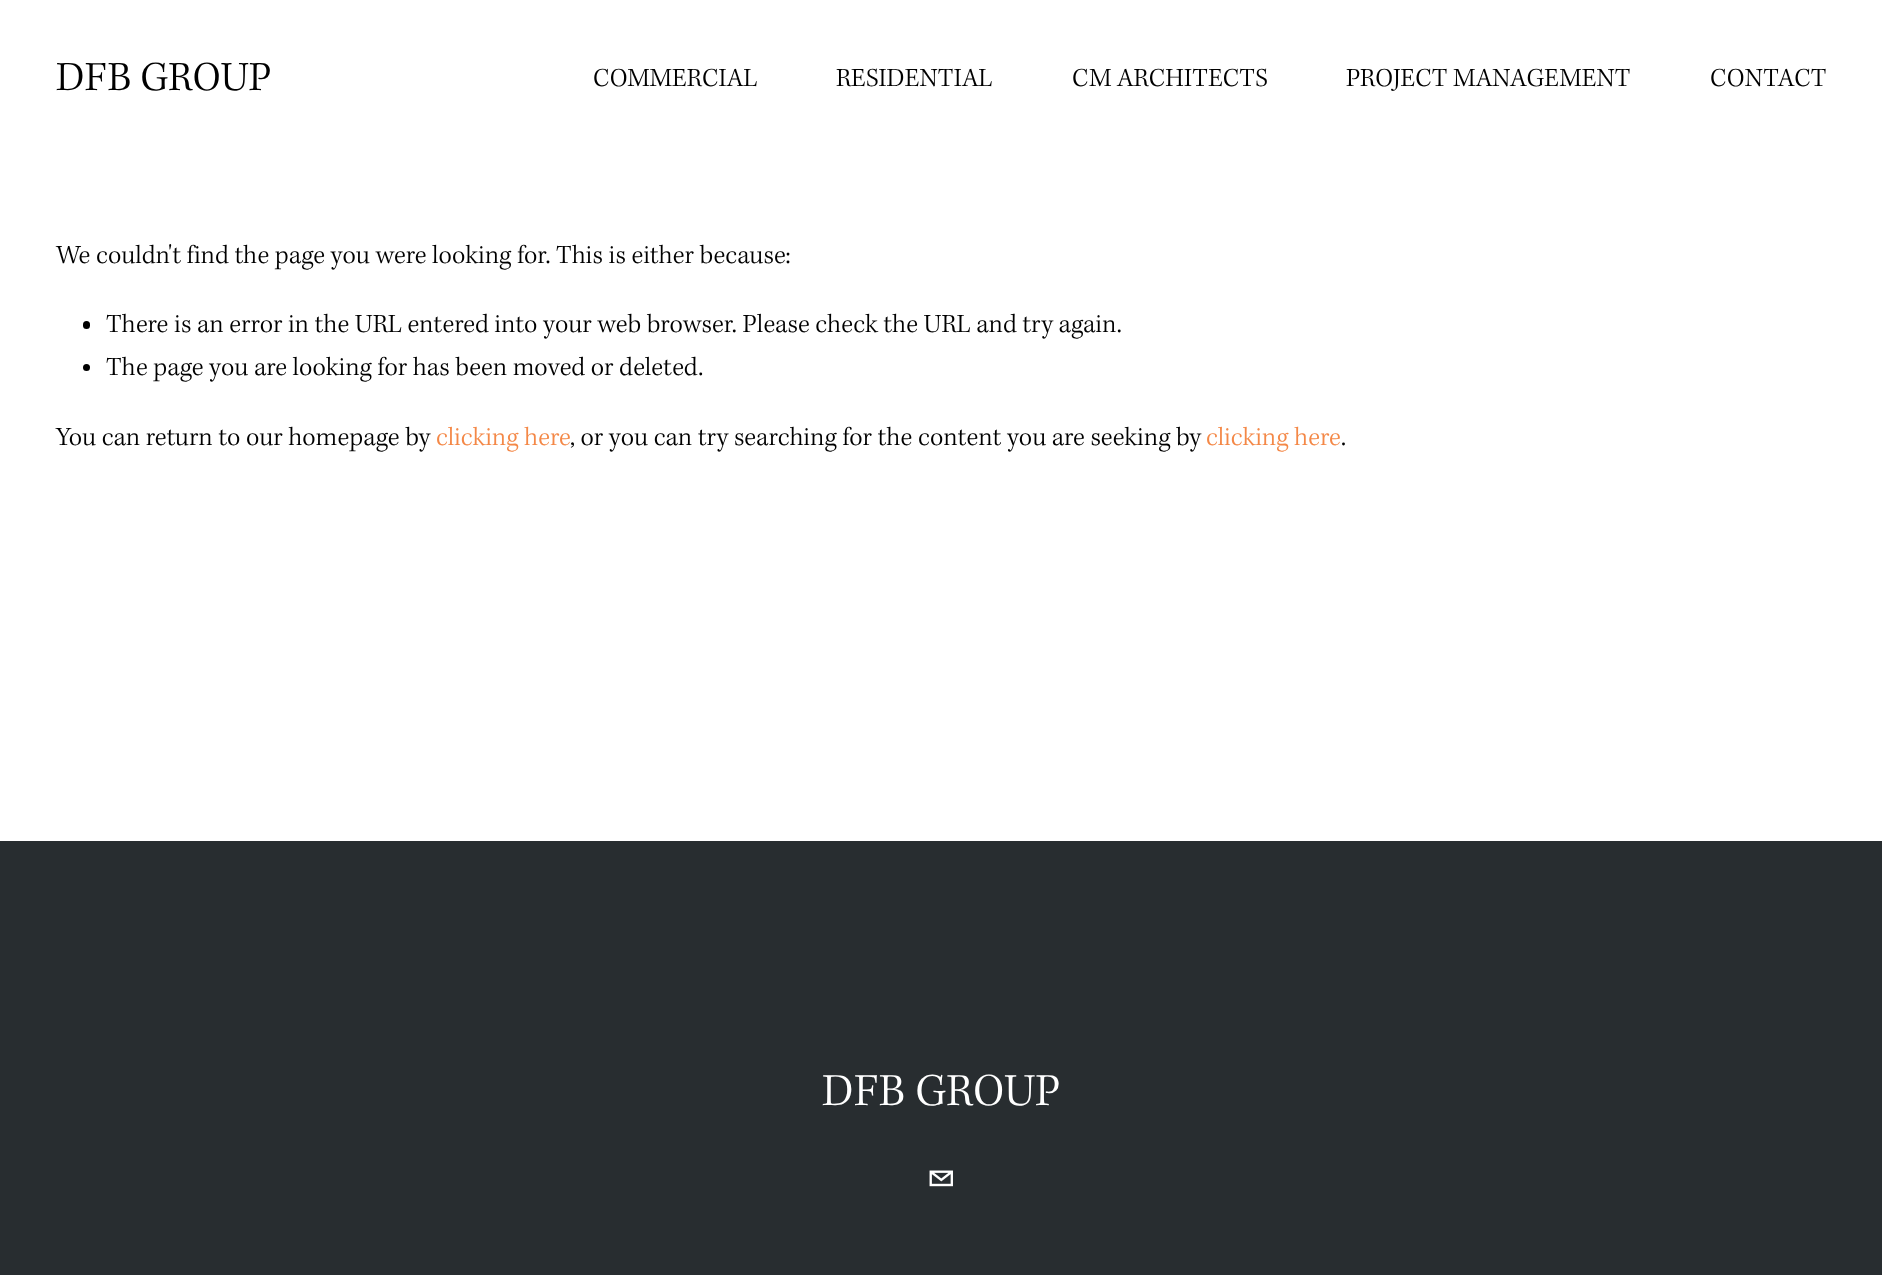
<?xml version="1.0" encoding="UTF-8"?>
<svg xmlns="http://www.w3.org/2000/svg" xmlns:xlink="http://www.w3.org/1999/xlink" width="1882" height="1275">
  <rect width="100%" height="100%" fill="#ffffff" />
  <rect x="83" y="321" width="7" height="8" rx="3.5" fill="#000000" />
  <circle cx="86.5" cy="367.5" r="3.5" fill="#000000" />
  <rect y="841" width="1882" height="434" fill="#282d30" />
  <image x="929" y="1170" width="24" height="17" xlink:href="image1.png" />
  <text x="56" y="90" style="font-family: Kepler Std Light; font-size: 42.5px; font-weight: 300; fill: #000000">DFB GROUP</text>
  <text x="593" y="86" style="font-family: Kepler Std Light; font-size: 26.8px; font-weight: 300; fill: #000000">COMMERCIAL</text>
  <text x="836" y="86" style="font-family: Kepler Std Light; font-size: 26.8px; font-weight: 300; fill: #000000">RESIDENTIAL</text>
  <text x="1072" y="86" style="font-family: Kepler Std Light; font-size: 26.8px; font-weight: 300; fill: #000000">CM ARCHITECTS</text>
  <text x="1346" y="86" style="font-family: Kepler Std Light; font-size: 26.8px; font-weight: 300; fill: #000000">PROJECT MANAGEMENT</text>
  <text x="1710" y="86" style="font-family: Kepler Std Light; font-size: 26.8px; font-weight: 300; fill: #000000">CONTACT</text>
  <text x="56" y="263" style="font-family: Kepler Std Light; font-size: 26.8px; font-weight: 300; fill: #000000">We couldn't find the page you were looking for. This is either because:</text>
  <text x="106" y="332" style="font-family: Kepler Std Light; font-size: 26.8px; font-weight: 300; fill: #000000">There is an error in the URL entered into your web browser. Please check the URL and try again.</text>
  <text x="106" y="375" style="font-family: Kepler Std Light; font-size: 26.8px; font-weight: 300; fill: #000000">The page you are looking for has been moved or deleted.</text>
  <text x="56" y="445" style="font-family: Kepler Std Light; font-size: 26.8px; font-weight: 300; fill: #000000">You can return to our homepage by</text>
  <text x="436" y="445" style="font-family: Kepler Std Light; font-size: 26.8px; font-weight: 300; fill: #f48847">clicking here</text>
  <text x="570" y="445" style="font-family: Kepler Std Light; font-size: 26.8px; font-weight: 300; fill: #000000">, or you can try searching for the content you are seeking by</text>
  <text x="1206" y="445" style="font-family: Kepler Std Light; font-size: 26.8px; font-weight: 300; fill: #f48847">clicking here</text>
  <text x="1341" y="445" style="font-family: Kepler Std Light; font-size: 26.8px; font-weight: 300; fill: #000000">.</text>
  <text x="822" y="1105" style="font-family: Kepler Std Light; font-size: 47px; font-weight: 300; fill: #ffffff">DFB GROUP</text>
</svg>
